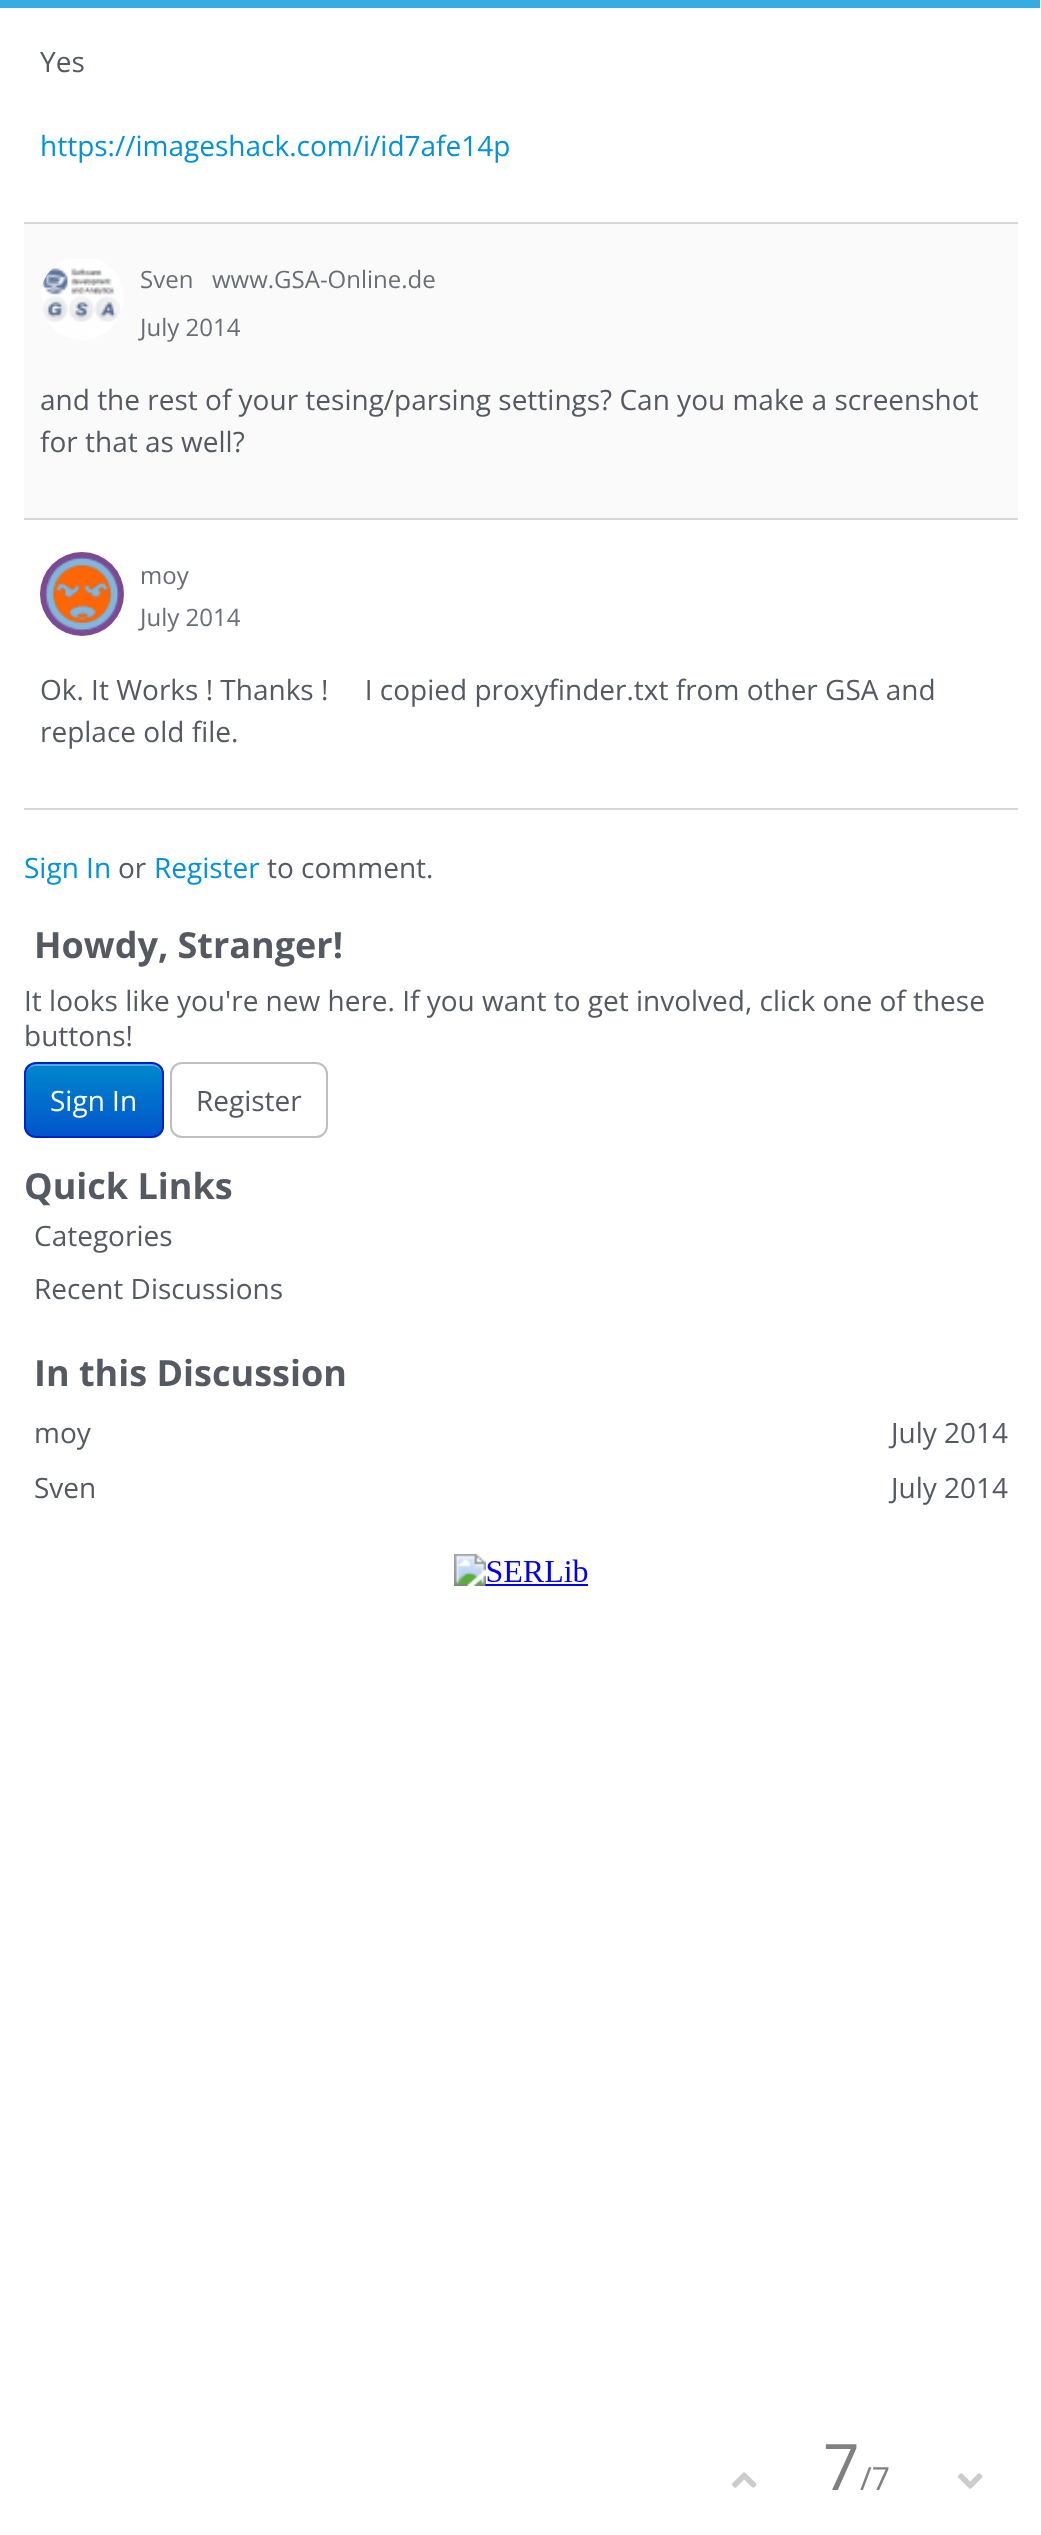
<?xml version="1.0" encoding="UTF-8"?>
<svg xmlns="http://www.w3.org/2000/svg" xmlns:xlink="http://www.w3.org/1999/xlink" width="1041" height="2535">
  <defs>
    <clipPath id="clip1"><rect x="24" y="1062" width="140" height="76" rx="12" /></clipPath>
    <linearGradient id="g1" gradientUnits="userSpaceOnUse" x1="26" y1="1136" x2="26" y2="1064"><stop offset="0" stop-color="#0055cc" /><stop offset="1" stop-color="#0088cc" /></linearGradient>
  </defs>
  <rect width="100%" height="100%" fill="#ffffff" />
  <rect width="1040" height="8" fill="#38abe3" />
  <rect x="24" y="224" width="994" height="294" fill="#fafafa" />
  <rect x="24" y="222" width="994" height="2" fill="#d6d7d9" />
  <image x="42" y="259" width="82" height="81" xlink:href="image1.png" />
  <rect x="24" y="518" width="994" height="2" fill="#d6d7d9" />
  <rect x="24" y="808" width="994" height="2" fill="#d6d7d9" />
  <image x="40" y="552" width="84" height="84" xlink:href="image2.png" />
  <g clip-path="url(#clip1)">
    <rect x="24" y="1064" width="140" height="72" fill="url(#g1)" />
  </g>
  <path d="M 36 1066 h 116 c 6 0 10 4 10 10 c 0 -17 -17 -12 -29 -12 h -78 c -12 0 -29 -5 -29 12 c 0 -6 4 -10 10 -10 z" fill="#ffffff" fill-opacity="0.3" />
  <rect x="25" y="1063" width="138" height="74" rx="11" fill="none" stroke="#0022cc" stroke-width="2" />
  <rect x="171" y="1063" width="156" height="74" rx="11" fill="none" stroke="#bcbec1" stroke-width="2" />
  <image x="454" y="1554" width="134" height="32" xlink:href="image3.png" />
  <image x="732" y="2472" width="25" height="16" xlink:href="image4.png" />
  <image x="958" y="2473" width="25" height="16" xlink:href="image5.png" />
  <text x="40" y="72" style="font-family: Open Sans; font-size: 28px; fill: #555a62">Yes</text>
  <text x="40" y="156" style="font-family: Open Sans; font-size: 28px; fill: #0291db">https://imageshack.com/i/id7afe14p</text>
  <text x="140" y="288" style="font-family: Open Sans; font-size: 24px; fill: #696e75">Sven</text>
  <text x="212" y="288" style="font-family: Open Sans; font-size: 24px; fill: #696e75">www.GSA-Online.de</text>
  <text x="140" y="336" style="font-family: Open Sans; font-size: 24px; fill: #696e75">July 2014</text>
  <text x="40" y="410" style="font-family: Open Sans; font-size: 28px; fill: #555a62">and the rest of your tesing/parsing settings? Can you make a screenshot</text>
  <text x="40" y="452" style="font-family: Open Sans; font-size: 28px; fill: #555a62">for that as well?</text>
  <text x="140" y="584" style="font-family: Open Sans; font-size: 24px; fill: #696e75">moy</text>
  <text x="140" y="626" style="font-family: Open Sans; font-size: 24px; fill: #696e75">July 2014</text>
  <text x="40" y="700" style="font-family: Open Sans; font-size: 28px; fill: #555a62" xml:space="preserve">Ok. It Works ! Thanks !     I copied proxyfinder.txt from other GSA and</text>
  <text x="40" y="742" style="font-family: Open Sans; font-size: 28px; fill: #555a62">replace old file.</text>
  <text x="24" y="878" style="font-family: Open Sans; font-size: 28px; fill: #0291db">Sign In</text>
  <text x="118" y="878" style="font-family: Open Sans; font-size: 28px; fill: #555a62">or</text>
  <text x="154" y="878" style="font-family: Open Sans; font-size: 28px; fill: #0291db">Register</text>
  <text x="267" y="878" style="font-family: Open Sans; font-size: 28px; fill: #555a62">to comment.</text>
  <text x="34" y="958" style="font-family: Open Sans; font-size: 36px; font-weight: bold; fill: #555a62">Howdy, Stranger!</text>
  <text x="24" y="1011" style="font-family: Open Sans; font-size: 28px; fill: #555a62">It looks like you're new here. If you want to get involved, click one of these</text>
  <text x="24" y="1046" style="font-family: Open Sans; font-size: 28px; fill: #555a62">buttons!</text>
  <text x="50" y="1111" style="font-family: Open Sans; font-size: 28px; fill: #ffffff">Sign In</text>
  <text x="196" y="1111" style="font-family: Open Sans; font-size: 28px; fill: #555a62">Register</text>
  <text x="24" y="1199" style="font-family: Open Sans; font-size: 36px; font-weight: bold; fill: #555a62">Quick Links</text>
  <text x="34" y="1246" style="font-family: Open Sans; font-size: 28px; fill: #555a62">Categories</text>
  <text x="34" y="1299" style="font-family: Open Sans; font-size: 28px; fill: #555a62">Recent Discussions</text>
  <text x="34" y="1386" style="font-family: Open Sans; font-size: 36px; font-weight: bold; fill: #555a62">In this Discussion</text>
  <text x="34" y="1443" style="font-family: Open Sans; font-size: 28px; fill: #555a62">moy</text>
  <text x="891" y="1443" style="font-family: Open Sans; font-size: 28px; fill: #555a62">July 2014</text>
  <text x="34" y="1498" style="font-family: Open Sans; font-size: 28px; fill: #555a62">Sven</text>
  <text x="891" y="1498" style="font-family: Open Sans; font-size: 28px; fill: #555a62">July 2014</text>
  <text x="823" y="2490" style="font-family: Open Sans; font-size: 64px; fill: #808080">7</text>
  <text x="860" y="2490" style="font-family: Open Sans; font-size: 32px; fill: #808080">/7</text>
</svg>
